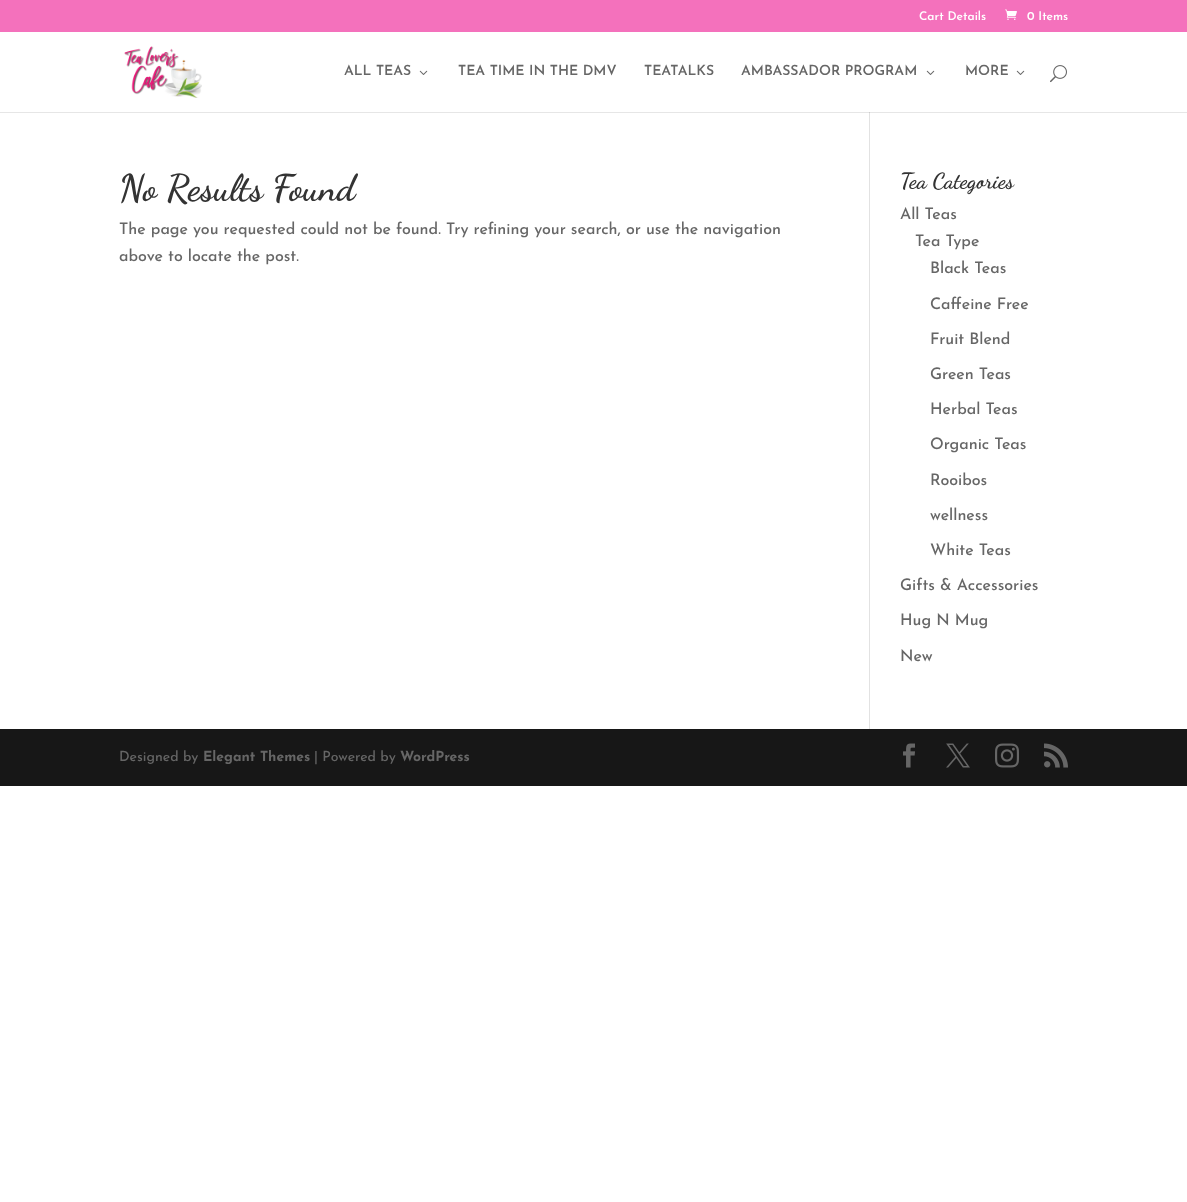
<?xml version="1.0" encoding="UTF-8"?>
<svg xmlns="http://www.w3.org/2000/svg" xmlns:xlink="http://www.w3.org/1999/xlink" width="1187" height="1202">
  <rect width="100%" height="100%" fill="#ffffff" />
  <rect y="112" width="1187" height="1" fill="#e6e6e6" />
  <rect width="1187" height="32" fill="#f471bc" />
  <image x="1005" y="9" width="12" height="11" xlink:href="image1.png" />
  <image x="124" y="46" width="78" height="52" xlink:href="image2.png" />
  <image x="419" y="70" width="9" height="5" xlink:href="image3.png" />
  <image x="926" y="70" width="9" height="5" xlink:href="image3.png" />
  <image x="1016" y="70" width="9" height="5" xlink:href="image3.png" />
  <image x="1050" y="65" width="17" height="18" xlink:href="image4.png" />
  <rect x="869" y="112" width="1" height="617" fill="#e2e2e2" />
  <rect x="869" y="112" width="1" height="1" fill="#cbcbcb" />
  <rect y="729" width="1187" height="57" fill="#171717" />
  <image x="903" y="743" width="12" height="25" xlink:href="image5.png" />
  <image x="946" y="743" width="24" height="25" xlink:href="image6.png" />
  <image x="995" y="743" width="24" height="25" xlink:href="image7.png" />
  <image x="1044" y="743" width="24" height="25" xlink:href="image8.png" />
  <text x="919" y="20" style="font-family: Josefin Sans; font-size: 12px; font-weight: 600; fill: #ffffff">Cart Details</text>
  <text x="1027" y="20" style="font-family: Josefin Sans; font-size: 12px; font-weight: 600; fill: #ffffff">0 Items</text>
  <text x="344" y="75" style="font-family: Josefin Sans; font-size: 14px; font-weight: 600; fill: #666666">ALL TEAS</text>
  <text x="458" y="75" style="font-family: Josefin Sans; font-size: 14px; font-weight: 600; fill: #666666">TEA TIME IN THE DMV</text>
  <text x="644" y="75" style="font-family: Josefin Sans; font-size: 14px; font-weight: 600; fill: #666666">TEATALKS</text>
  <text x="741" y="75" style="font-family: Josefin Sans; font-size: 14px; font-weight: 600; fill: #666666">AMBASSADOR PROGRAM</text>
  <text x="965" y="75" style="font-family: Josefin Sans; font-size: 14px; font-weight: 600; fill: #666666">MORE</text>
  <text x="119" y="200" style="font-family: Dancing Script; font-size: 37px; font-weight: bold; fill: #333333">No Results Found</text>
  <text x="119" y="234" style="font-family: Josefin Sans; font-size: 16px; font-weight: 500; fill: #666666">The page you requested could not be found. Try refining your search, or use the navigation</text>
  <text x="119" y="261" style="font-family: Josefin Sans; font-size: 16px; font-weight: 500; fill: #666666">above to locate the post.</text>
  <text x="900" y="188" style="font-family: Dancing Script; font-size: 22px; font-weight: bold; fill: #333333">Tea Categories</text>
  <text x="900" y="219" style="font-family: Josefin Sans; font-size: 16px; font-weight: 500; fill: #666666">All Teas</text>
  <text x="915" y="246" style="font-family: Josefin Sans; font-size: 16px; font-weight: 500; fill: #666666">Tea Type</text>
  <text x="930" y="273" style="font-family: Josefin Sans; font-size: 16px; font-weight: 500; fill: #666666">Black Teas</text>
  <text x="930" y="309" style="font-family: Josefin Sans; font-size: 16px; font-weight: 500; fill: #666666">Caffeine Free</text>
  <text x="930" y="344" style="font-family: Josefin Sans; font-size: 16px; font-weight: 500; fill: #666666">Fruit Blend</text>
  <text x="930" y="379" style="font-family: Josefin Sans; font-size: 16px; font-weight: 500; fill: #666666">Green Teas</text>
  <text x="930" y="414" style="font-family: Josefin Sans; font-size: 16px; font-weight: 500; fill: #666666">Herbal Teas</text>
  <text x="930" y="449" style="font-family: Josefin Sans; font-size: 16px; font-weight: 500; fill: #666666">Organic Teas</text>
  <text x="930" y="485" style="font-family: Josefin Sans; font-size: 16px; font-weight: 500; fill: #666666">Rooibos</text>
  <text x="930" y="520" style="font-family: Josefin Sans; font-size: 16px; font-weight: 500; fill: #666666">wellness</text>
  <text x="930" y="555" style="font-family: Josefin Sans; font-size: 16px; font-weight: 500; fill: #666666">White Teas</text>
  <text x="900" y="590" style="font-family: Josefin Sans; font-size: 16px; font-weight: 500; fill: #666666">Gifts &amp; Accessories</text>
  <text x="900" y="625" style="font-family: Josefin Sans; font-size: 16px; font-weight: 500; fill: #666666">Hug N Mug</text>
  <text x="900" y="661" style="font-family: Josefin Sans; font-size: 16px; font-weight: 500; fill: #666666">New</text>
  <text x="119" y="761" style="font-family: Josefin Sans; font-size: 14px; font-weight: 500; fill: #666666">Designed by</text>
  <text x="203" y="761" style="font-family: Josefin Sans; font-size: 14px; font-weight: bold; fill: #666666">Elegant Themes</text>
  <text x="314" y="761" style="font-family: Josefin Sans; font-size: 14px; font-weight: 500; fill: #666666">| Powered by</text>
  <text x="400" y="761" style="font-family: Josefin Sans; font-size: 14px; font-weight: bold; fill: #666666">WordPress</text>
</svg>
